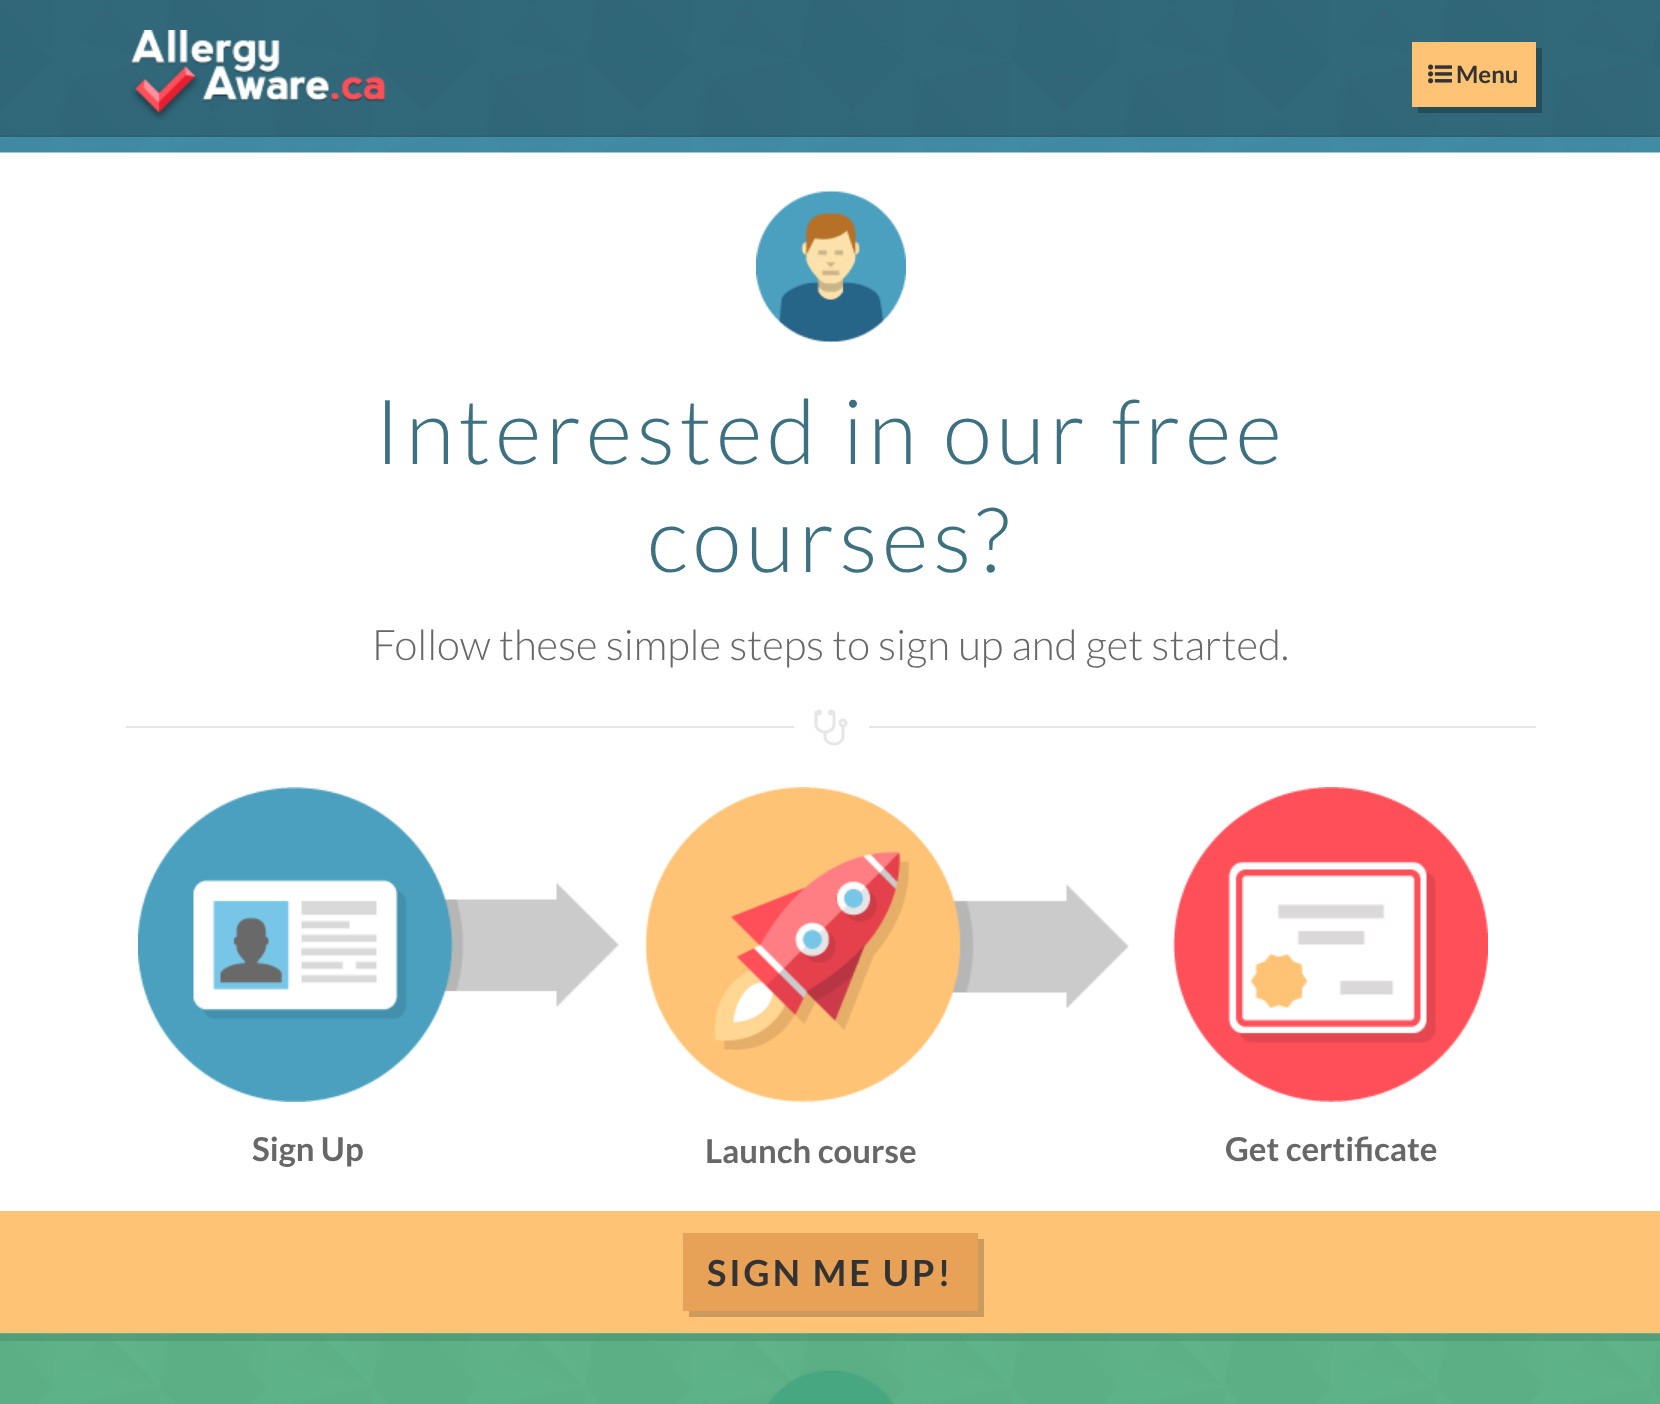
<?xml version="1.0" encoding="UTF-8"?>
<svg xmlns="http://www.w3.org/2000/svg" xmlns:xlink="http://www.w3.org/1999/xlink" width="1660" height="1404">
  <rect width="100%" height="100%" fill="#ffffff" />
  <image x="0" y="0" width="1660" height="135" xlink:href="image1.png" />
  <image x="130" y="30" width="256" height="90" xlink:href="image2.png" />
  <path d="M 1418 106 v 7 h 124 v -65 h -6 v 58 z" fill="#000000" fill-opacity="0.25" />
  <rect x="1412" y="42" width="124" height="65" fill="#ffc375" />
  <image x="1428" y="64" width="24" height="20" xlink:href="image3.png" />
  <rect y="135" width="1660" height="2" fill="#2e6172" />
  <image x="0" y="137" width="1660" height="16" xlink:href="image4.png" />
  <image x="756" y="190" width="150" height="153" xlink:href="image5.png" />
  <rect x="126" y="726" width="668" height="2" fill="#e6e6e6" />
  <image x="814" y="709" width="34" height="37" xlink:href="image6.png" />
  <rect x="869" y="726" width="667" height="2" fill="#e6e6e6" />
  <image x="138" y="787" width="482" height="315" xlink:href="image7.png" />
  <image x="645" y="787" width="484" height="316" xlink:href="image8.png" />
  <image x="1173" y="787" width="315" height="315" xlink:href="image9.png" />
  <rect y="1211" width="1660" height="122" fill="#ffc375" />
  <path d="M 689 1311 v 6 h 295 v -78 h -6 v 72 z" fill="#cc9c5e" />
  <rect x="683" y="1233" width="295" height="78" fill="#e7a257" />
  <image x="0" y="1333" width="1660" height="71" xlink:href="image10.png" />
  <rect y="1334" width="1660" height="7" fill="#000000" fill-opacity="0.1" />
  <image x="768" y="1370" width="127" height="34" xlink:href="image11.png" />
  <text x="1456" y="83" style="font-family: Lato; font-size: 24px; font-weight: bold; fill: #333333">Menu</text>
  <text x="374" y="464" style="font-family: Lato; font-size: 90px; font-weight: 300; letter-spacing: 4.5px; fill: #3d7080">Interested in our free</text>
  <text x="647" y="572" style="font-family: Lato; font-size: 90px; font-weight: 300; letter-spacing: 4.5px; fill: #3d7080">courses?</text>
  <text x="372" y="660" style="font-family: Lato; font-size: 42px; font-weight: 300; fill: #676767">Follow these simple steps to sign up and get started.</text>
  <text x="252" y="1161" style="font-family: Lato; font-size: 33px; font-weight: bold; fill: #676767">Sign Up</text>
  <text x="705" y="1163" style="font-family: Lato; font-size: 33px; font-weight: bold; fill: #676767">Launch course</text>
  <text x="1225" y="1161" style="font-family: Lato; font-size: 33px; font-weight: bold; fill: #676767">Get certificate</text>
  <text x="707" y="1286" style="font-family: Lato; font-size: 36px; font-weight: bold; letter-spacing: 3px; fill: #333333">SIGN ME UP!</text>
</svg>
